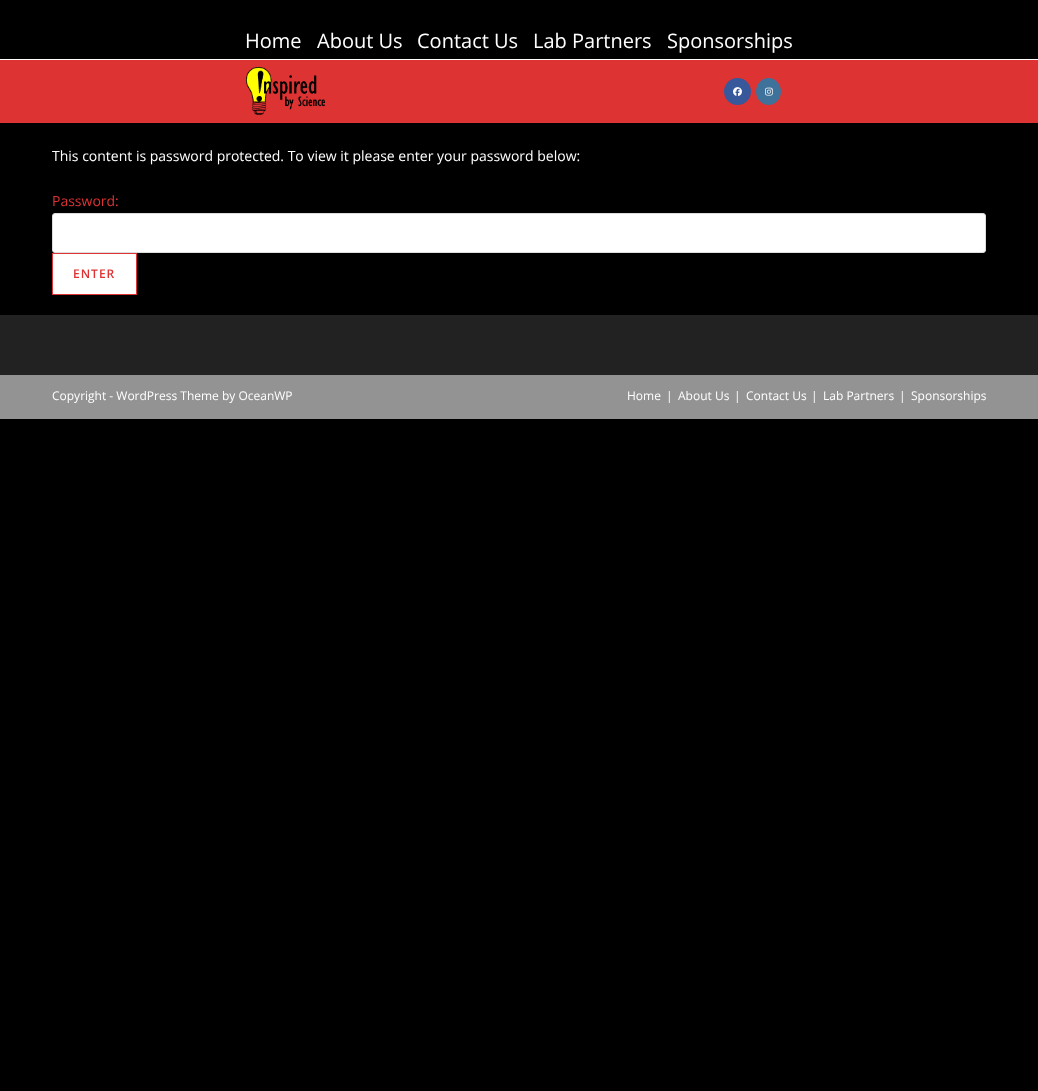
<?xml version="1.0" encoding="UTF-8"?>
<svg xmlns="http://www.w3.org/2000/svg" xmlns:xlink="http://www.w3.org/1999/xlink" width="1038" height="1091">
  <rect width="100%" height="100%" fill="#000000" />
  <rect y="59" width="1038" height="1" fill="#ffffff" />
  <rect y="60" width="1038" height="63" fill="#dd3333" />
  <image x="246" y="67" width="79" height="48" xlink:href="image1.png" />
  <circle cx="737.5" cy="91.5" r="13.5" fill="#37589b" />
  <image x="733" y="87" width="9" height="9" xlink:href="image2.png" />
  <ellipse cx="768.5" cy="91.5" rx="12.5" ry="13.5" fill="#3f729b" />
  <image x="765" y="87" width="8" height="9" xlink:href="image3.png" />
  <rect x="52.5" y="213.5" width="933" height="39" rx="2.5" fill="#ffffff" stroke="#dddddd" />
  <rect x="52.5" y="253.5" width="84" height="41" fill="#ffffff" stroke="#dd3333" />
  <rect y="315" width="1038" height="60" fill="#222222" />
  <rect y="375" width="1038" height="44" fill="#939393" />
  <text x="245" y="48" style="font-family: Open Sans; font-size: 20px; fill: #ffffff">Home</text>
  <text x="317" y="48" style="font-family: Open Sans; font-size: 20px; fill: #ffffff">About Us</text>
  <text x="417" y="48" style="font-family: Open Sans; font-size: 20px; fill: #ffffff">Contact Us</text>
  <text x="533" y="48" style="font-family: Open Sans; font-size: 20px; fill: #ffffff">Lab Partners</text>
  <text x="667" y="48" style="font-family: Open Sans; font-size: 20px; fill: #ffffff">Sponsorships</text>
  <text x="52" y="161" style="font-family: Open Sans; font-size: 14px; fill: #ffffff">This content is password protected. To view it please enter your password below:</text>
  <text x="52" y="206" style="font-family: Open Sans; font-size: 14px; fill: #dd3333">Password:</text>
  <text x="73" y="278" style="font-family: Open Sans; font-size: 12px; font-weight: 600; letter-spacing: 1px; fill: #dd3333">ENTER</text>
  <text x="52" y="400" style="font-family: Open Sans; font-size: 12px; fill: #ffffff">Copyright - WordPress Theme by OceanWP</text>
  <text x="627" y="400" style="font-family: Open Sans; font-size: 12px; fill: #ffffff">Home</text>
  <text x="666" y="400" style="font-family: Open Sans; font-size: 12px; fill: #ffffff">|</text>
  <text x="678" y="400" style="font-family: Open Sans; font-size: 12px; fill: #ffffff">About Us</text>
  <text x="734" y="400" style="font-family: Open Sans; font-size: 12px; fill: #ffffff">|</text>
  <text x="746" y="400" style="font-family: Open Sans; font-size: 12px; fill: #ffffff">Contact Us</text>
  <text x="811" y="400" style="font-family: Open Sans; font-size: 12px; fill: #ffffff">|</text>
  <text x="823" y="400" style="font-family: Open Sans; font-size: 12px; fill: #ffffff">Lab Partners</text>
  <text x="899" y="400" style="font-family: Open Sans; font-size: 12px; fill: #ffffff">|</text>
  <text x="911" y="400" style="font-family: Open Sans; font-size: 12px; fill: #ffffff">Sponsorships</text>
</svg>
